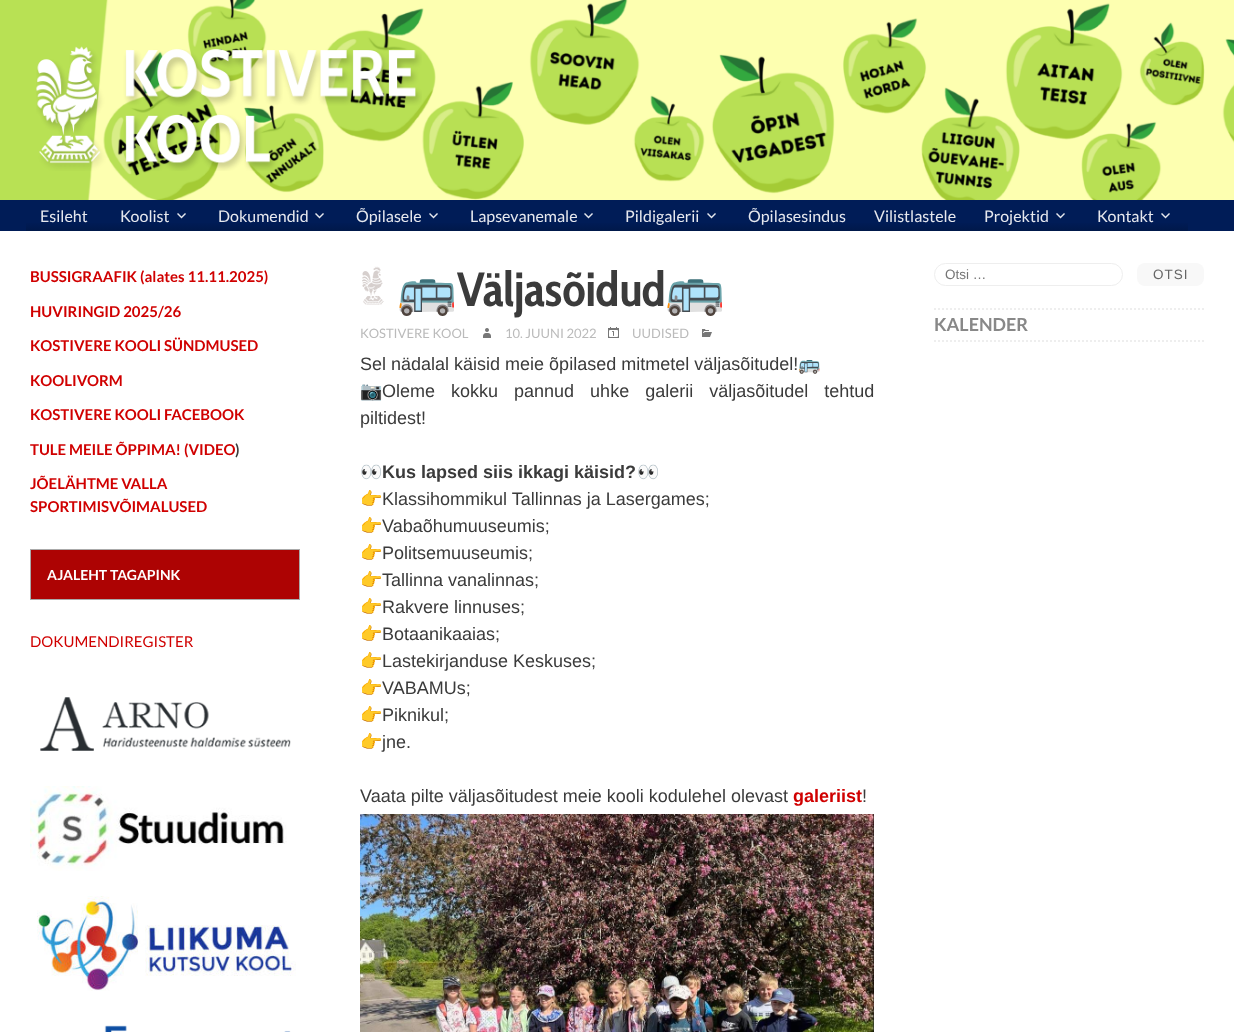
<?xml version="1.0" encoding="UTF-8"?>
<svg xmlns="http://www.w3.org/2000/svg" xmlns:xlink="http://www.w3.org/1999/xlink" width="1234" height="1032">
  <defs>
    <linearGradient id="g1" gradientUnits="userSpaceOnUse" x1="66" y1="200" x2="66" y2="231"><stop offset="0.7" stop-color="#001c57" /><stop offset="1" stop-color="#00184a" /></linearGradient>
    <linearGradient id="g2" gradientUnits="userSpaceOnUse" x1="155" y1="200" x2="155" y2="231"><stop offset="0.7" stop-color="#001c57" /><stop offset="1" stop-color="#00184a" /></linearGradient>
    <linearGradient id="g3" gradientUnits="userSpaceOnUse" x1="273" y1="200" x2="273" y2="231"><stop offset="0.7" stop-color="#001c57" /><stop offset="1" stop-color="#00184a" /></linearGradient>
    <linearGradient id="g4" gradientUnits="userSpaceOnUse" x1="399" y1="200" x2="399" y2="231"><stop offset="0.7" stop-color="#001c57" /><stop offset="1" stop-color="#00184a" /></linearGradient>
    <linearGradient id="g5" gradientUnits="userSpaceOnUse" x1="534" y1="200" x2="534" y2="231"><stop offset="0.7" stop-color="#001c57" /><stop offset="1" stop-color="#00184a" /></linearGradient>
    <linearGradient id="g6" gradientUnits="userSpaceOnUse" x1="673" y1="200" x2="673" y2="231"><stop offset="0.7" stop-color="#001c57" /><stop offset="1" stop-color="#00184a" /></linearGradient>
    <linearGradient id="g7" gradientUnits="userSpaceOnUse" x1="797" y1="200" x2="797" y2="231"><stop offset="0.7" stop-color="#001c57" /><stop offset="1" stop-color="#00184a" /></linearGradient>
    <linearGradient id="g8" gradientUnits="userSpaceOnUse" x1="915" y1="200" x2="915" y2="231"><stop offset="0.7" stop-color="#001c57" /><stop offset="1" stop-color="#00184a" /></linearGradient>
    <linearGradient id="g9" gradientUnits="userSpaceOnUse" x1="1027" y1="200" x2="1027" y2="231"><stop offset="0.7" stop-color="#001c57" /><stop offset="1" stop-color="#00184a" /></linearGradient>
    <linearGradient id="g10" gradientUnits="userSpaceOnUse" x1="1136" y1="200" x2="1136" y2="231"><stop offset="0.7" stop-color="#001c57" /><stop offset="1" stop-color="#00184a" /></linearGradient>
  </defs>
  <rect width="100%" height="100%" fill="#ffffff" />
  <image x="0" y="0" width="1234" height="200" xlink:href="image1.png" />
  <image x="36" y="46" width="386" height="125" xlink:href="image2.png" />
  <rect y="200" width="1234" height="31" fill="#001c57" />
  <rect x="26" y="223" width="80" height="8" fill="url(#g1)" />
  <rect x="106" y="223" width="98" height="8" fill="url(#g2)" />
  <image x="177" y="213" width="9" height="6" xlink:href="image3.png" />
  <rect x="204" y="223" width="138" height="8" fill="url(#g3)" />
  <image x="315" y="213" width="9" height="6" xlink:href="image3.png" />
  <rect x="342" y="223" width="114" height="8" fill="url(#g4)" />
  <image x="429" y="213" width="9" height="6" xlink:href="image3.png" />
  <rect x="456" y="223" width="155" height="8" fill="url(#g5)" />
  <image x="584" y="213" width="9" height="6" xlink:href="image3.png" />
  <rect x="611" y="223" width="123" height="8" fill="url(#g6)" />
  <image x="707" y="213" width="9" height="6" xlink:href="image3.png" />
  <rect x="734" y="223" width="126" height="8" fill="url(#g7)" />
  <rect x="860" y="223" width="110" height="8" fill="url(#g8)" />
  <rect x="970" y="223" width="113" height="8" fill="url(#g9)" />
  <image x="1056" y="213" width="9" height="6" xlink:href="image3.png" />
  <rect x="1083" y="223" width="105" height="8" fill="url(#g10)" />
  <image x="1161" y="213" width="9" height="6" xlink:href="image3.png" />
  <rect x="31" y="550" width="268" height="49" fill="#ad0303" />
  <rect x="30" y="549" width="270" height="1" fill="#aaaaaa" />
  <rect x="299" y="549" width="1" height="51" fill="#aaaaaa" />
  <rect x="30" y="599" width="270" height="1" fill="#aaaaaa" />
  <rect x="30" y="549" width="1" height="51" fill="#aaaaaa" />
  <image x="40" y="697" width="251" height="54" xlink:href="image4.png" />
  <image x="30" y="786" width="257" height="85" xlink:href="image5.png" />
  <image x="37" y="896" width="259" height="95" xlink:href="image6.png" />
  <image x="104" y="1025" width="187" height="7" xlink:href="image7.png" />
  <image x="362" y="266" width="22" height="39" xlink:href="image8.png" />
  <image x="483" y="328" width="8" height="10" xlink:href="image9.png" />
  <image x="608" y="327" width="11" height="11" xlink:href="image10.png" />
  <image x="702" y="329" width="10" height="8" xlink:href="image11.png" />
  <image x="360" y="814" width="514" height="218" xlink:href="image12.png" />
  <rect x="934.5" y="263.5" width="188" height="22" rx="11" fill="none" stroke="#eeeeee" />
  <rect x="1137" y="263" width="67" height="23" rx="8" fill="#f8f8f8" />
  <path d="M 934 309 h 270" fill="none" stroke="#eeeeee" stroke-width="2" stroke-dasharray="2 2" />
  <path d="M 934 341 h 270" fill="none" stroke="#eeeeee" stroke-width="2" stroke-dasharray="2 2" />
  <text x="40" y="222" style="font-family: Lato; font-size: 16px; fill: #e6e8ee">Esileht</text>
  <text x="120" y="222" style="font-family: Lato; font-size: 16px; fill: #e6e8ee">Koolist</text>
  <text x="218" y="222" style="font-family: Lato; font-size: 16px; fill: #e6e8ee">Dokumendid</text>
  <text x="356" y="222" style="font-family: Lato; font-size: 16px; fill: #e6e8ee">Õpilasele</text>
  <text x="470" y="222" style="font-family: Lato; font-size: 16px; fill: #e6e8ee">Lapsevanemale</text>
  <text x="625" y="222" style="font-family: Lato; font-size: 16px; fill: #e6e8ee">Pildigalerii</text>
  <text x="748" y="222" style="font-family: Lato; font-size: 16px; fill: #e6e8ee">Õpilasesindus</text>
  <text x="874" y="222" style="font-family: Lato; font-size: 16px; fill: #e6e8ee">Vilistlastele</text>
  <text x="984" y="222" style="font-family: Lato; font-size: 16px; fill: #e6e8ee">Projektid</text>
  <text x="1097" y="222" style="font-family: Lato; font-size: 16px; fill: #e6e8ee">Kontakt</text>
  <text x="30" y="282" style="font-family: Lato; font-size: 15px; font-weight: bold; fill: #d00000">BUSSIGRAAFIK (alates 11.11.2025)</text>
  <text x="30" y="317" style="font-family: Lato; font-size: 15px; font-weight: bold; fill: #d00000">HUVIRINGID 2025/26</text>
  <text x="30" y="351" style="font-family: Lato; font-size: 15px; font-weight: bold; fill: #d00000">KOSTIVERE KOOLI SÜNDMUSED</text>
  <text x="30" y="386" style="font-family: Lato; font-size: 15px; font-weight: bold; fill: #d00000">KOOLIVORM</text>
  <text x="30" y="420" style="font-family: Lato; font-size: 15px; font-weight: bold; fill: #d00000">KOSTIVERE KOOLI FACEBOOK</text>
  <text x="30" y="455" style="font-family: Lato; font-size: 15px; font-weight: bold; fill: #d00000">TULE MEILE ÕPPIMA! (VIDEO</text>
  <text x="235" y="455" style="font-family: Lato; font-size: 15px; font-weight: bold; fill: #3b3b3b">)</text>
  <text x="30" y="489" style="font-family: Lato; font-size: 15px; font-weight: bold; fill: #d00000">JÕELÄHTME VALLA</text>
  <text x="30" y="512" style="font-family: Lato; font-size: 15px; font-weight: bold; fill: #d00000">SPORTIMISVÕIMALUSED</text>
  <text x="47" y="580" style="font-family: Lato; font-size: 14px; font-weight: bold; fill: #ffffff">AJALEHT TAGAPINK</text>
  <text x="30" y="647" style="font-family: Lato; font-size: 15px; fill: #d00000">DOKUMENDIREGISTER</text>
  <text x="397" y="306" style="font-family: Noto Color Emoji; font-size: 48px; font-weight: bold; fill: #3b3b3b">🚌</text>
  <text x="457" y="306" style="font-family: Cabin Condensed; font-size: 48px; font-weight: bold; fill: #3b3b3b">Väljasõidud</text>
  <text x="665" y="306" style="font-family: Noto Color Emoji; font-size: 48px; font-weight: bold; fill: #3b3b3b">🚌</text>
  <text x="360" y="338" style="font-family: Lato; font-size: 13px; fill: #bbbbbb">KOSTIVERE KOOL</text>
  <text x="505" y="338" style="font-family: Lato; font-size: 13px; fill: #bbbbbb">10. JUUNI 2022</text>
  <text x="632" y="338" style="font-family: Lato; font-size: 13px; fill: #bbbbbb">UUDISED</text>
  <text x="360" y="370" style="font-family: Arimo; font-size: 18px; fill: #3b3b3b">Sel nädalal käisid meie õpilased mitmetel väljasõitudel!</text>
  <text x="798" y="370" style="font-family: Noto Color Emoji; font-size: 18px; fill: #3b3b3b">🚌</text>
  <text x="360" y="397" style="font-family: Noto Color Emoji; font-size: 18px; fill: #3b3b3b">📷</text>
  <text x="382" y="397" word-spacing="11" style="font-family: Arimo; font-size: 18px; fill: #3b3b3b">Oleme kokku pannud uhke galerii väljasõitudel tehtud</text>
  <text x="360" y="424" style="font-family: Arimo; font-size: 18px; fill: #3b3b3b">piltidest!</text>
  <text x="360" y="478" style="font-family: Noto Color Emoji; font-size: 18px; font-weight: bold; fill: #3b3b3b">👀</text>
  <text x="382" y="478" style="font-family: Arimo; font-size: 18px; font-weight: bold; fill: #3b3b3b">Kus lapsed siis ikkagi käisid?</text>
  <text x="637" y="478" style="font-family: Noto Color Emoji; font-size: 18px; font-weight: bold; fill: #3b3b3b">👀</text>
  <text x="360" y="505" style="font-family: Noto Color Emoji; font-size: 18px; fill: #3b3b3b">👉</text>
  <text x="382" y="505" style="font-family: Arimo; font-size: 18px; fill: #3b3b3b">Klassihommikul Tallinnas ja Lasergames;</text>
  <text x="360" y="532" style="font-family: Noto Color Emoji; font-size: 18px; fill: #3b3b3b">👉</text>
  <text x="382" y="532" style="font-family: Arimo; font-size: 18px; fill: #3b3b3b">Vabaõhumuuseumis;</text>
  <text x="360" y="559" style="font-family: Noto Color Emoji; font-size: 18px; fill: #3b3b3b">👉</text>
  <text x="382" y="559" style="font-family: Arimo; font-size: 18px; fill: #3b3b3b">Politsemuuseumis;</text>
  <text x="360" y="586" style="font-family: Noto Color Emoji; font-size: 18px; fill: #3b3b3b">👉</text>
  <text x="382" y="586" style="font-family: Arimo; font-size: 18px; fill: #3b3b3b">Tallinna vanalinnas;</text>
  <text x="360" y="613" style="font-family: Noto Color Emoji; font-size: 18px; fill: #3b3b3b">👉</text>
  <text x="382" y="613" style="font-family: Arimo; font-size: 18px; fill: #3b3b3b">Rakvere linnuses;</text>
  <text x="360" y="640" style="font-family: Noto Color Emoji; font-size: 18px; fill: #3b3b3b">👉</text>
  <text x="382" y="640" style="font-family: Arimo; font-size: 18px; fill: #3b3b3b">Botaanikaaias;</text>
  <text x="360" y="667" style="font-family: Noto Color Emoji; font-size: 18px; fill: #3b3b3b">👉</text>
  <text x="382" y="667" style="font-family: Arimo; font-size: 18px; fill: #3b3b3b">Lastekirjanduse Keskuses;</text>
  <text x="360" y="694" style="font-family: Noto Color Emoji; font-size: 18px; fill: #3b3b3b">👉</text>
  <text x="382" y="694" style="font-family: Arimo; font-size: 18px; fill: #3b3b3b">VABAMUs;</text>
  <text x="360" y="721" style="font-family: Noto Color Emoji; font-size: 18px; fill: #3b3b3b">👉</text>
  <text x="382" y="721" style="font-family: Arimo; font-size: 18px; fill: #3b3b3b">Piknikul;</text>
  <text x="360" y="748" style="font-family: Noto Color Emoji; font-size: 18px; fill: #3b3b3b">👉</text>
  <text x="382" y="748" style="font-family: Arimo; font-size: 18px; fill: #3b3b3b">jne.</text>
  <text x="360" y="802" style="font-family: Arimo; font-size: 18px; fill: #3b3b3b">Vaata pilte väljasõitudest meie kooli kodulehel olevast</text>
  <text x="793" y="802" style="font-family: Arimo; font-size: 18px; font-weight: bold; fill: #d00000">galeriist</text>
  <text x="862" y="802" style="font-family: Arimo; font-size: 18px; fill: #3b3b3b">!</text>
  <text x="945" y="279" style="font-family: Liberation Sans; font-size: 13.5px; fill: #757575">Otsi …</text>
  <text x="1153" y="279" style="font-family: Liberation Sans; font-size: 13.5px; letter-spacing: 1px; fill: #666666">OTSI</text>
  <text x="934" y="331" style="font-family: Lato; font-size: 18px; font-weight: bold; fill: #888888">KALENDER</text>
</svg>
